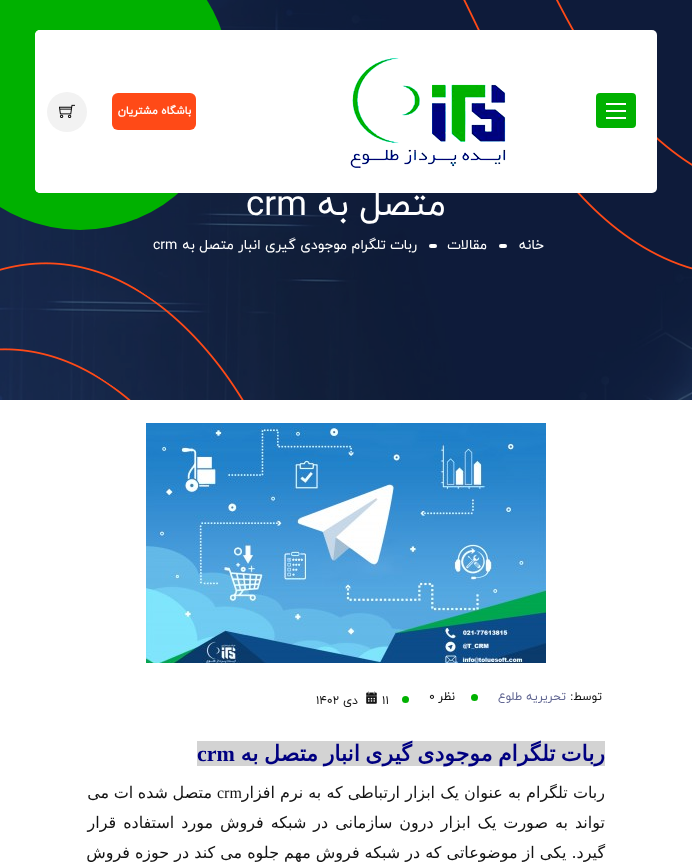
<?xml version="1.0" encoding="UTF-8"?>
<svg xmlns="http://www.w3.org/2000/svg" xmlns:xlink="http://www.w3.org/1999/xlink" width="692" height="866">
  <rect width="100%" height="100%" fill="#ffffff" />
  <image x="0" y="0" width="692" height="400" xlink:href="image3.png" />
  <image x="463" y="0" width="229" height="270" xlink:href="image4.png" />
  <circle cx="80" cy="80" r="150" fill="#00b100" />
  <rect x="35" y="30" width="622" height="163" rx="5" fill="#ffffff" />
  <rect x="35" y="30" width="612" height="163" rx="5" fill="#ffffff" />
  <rect x="596" y="93" width="40" height="35" rx="4" fill="#00b100" />
  <rect x="606" y="103" width="20" height="2" fill="#ffffff" />
  <rect x="606" y="110" width="20" height="2" fill="#ffffff" />
  <rect x="606" y="117" width="20" height="2" fill="#ffffff" />
  <image x="350" y="55" width="156" height="113" xlink:href="image1.png" />
  <rect x="112" y="93" width="84" height="37" rx="6" fill="#ff4a17" />
  <circle cx="67" cy="112" r="20" fill="#f2f2f2" />
  <image x="59" y="104" width="16" height="14" xlink:href="image2.png" />
  <rect x="499" y="244" width="8" height="4" rx="2" fill="#ffffff" />
  <rect x="429" y="244" width="8" height="4" rx="2" fill="#ffffff" />
  <image x="0" y="262" width="244" height="138" xlink:href="image5.png" />
  <image x="146" y="423" width="400" height="240" xlink:href="image6.png" />
  <circle cx="474.5" cy="697.5" r="3.5" fill="#00b100" />
  <circle cx="405.5" cy="699.5" r="3.5" fill="#00b100" />
  <image x="366" y="691" width="11" height="13" xlink:href="image7.png" />
  <rect x="197" y="741" width="408" height="25" fill="#d3d3d3" />
  <text x="191" y="114" style="font-family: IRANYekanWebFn; font-size: 11px; font-weight: bold; direction: rtl; fill: #ffffff">باشگاه مشتریان</text>
  <text x="446" y="215" style="font-family: IRANYekanWebFn; font-size: 35px; direction: rtl; fill: #ffffff">متصل به</text>
  <text x="246" y="215" style="font-family: IRANYekanWebFn; font-size: 35px; fill: #ffffff">crm</text>
  <text x="544" y="249" style="font-family: IRANYekanWebFn; font-size: 14px; direction: rtl; fill: #ffffff">خانه</text>
  <text x="487" y="249" style="font-family: IRANYekanWebFn; font-size: 14px; direction: rtl; fill: #ffffff">مقالات</text>
  <text x="417" y="249" style="font-family: IRANYekanWebFn; font-size: 14px; direction: rtl; fill: #ffffff">ربات تلگرام موجودی گیری انبار متصل به</text>
  <text x="153" y="249" style="font-family: IRANYekanWebFn; font-size: 14px; fill: #ffffff">crm</text>
  <text x="602" y="700" style="font-family: IRANYekanWebFn; font-size: 12px; direction: rtl; fill: #131313">توسط:</text>
  <text x="566" y="700" style="font-family: IRANYekanWebFn; font-size: 12px; direction: rtl; fill: #636893">تحریریه طلوع</text>
  <text x="455" y="700" style="font-family: IRANYekanWebFn; font-size: 12px; direction: rtl; fill: #131313">نظر</text>
  <text x="429" y="700" style="font-family: IRANYekanWebFn; font-size: 12px; fill: #131313">0</text>
  <text x="382" y="704" style="font-family: IRANYekanWebFn; font-size: 12px; fill: #131313">11</text>
  <text x="358" y="704" style="font-family: IRANYekanWebFn; font-size: 12px; direction: rtl; fill: #131313">دی</text>
  <text x="316" y="704" style="font-family: IRANYekanWebFn; font-size: 12px; fill: #131313">1402</text>
  <text x="605" y="761" word-spacing="-1.5" style="font-family: DejaVu Sans; font-size: 22px; font-weight: bold; direction: rtl; fill: #000080">ربات تلگرام موجودی گیری انبار متصل به</text>
  <text x="197" y="761" style="font-family: Liberation Serif; font-size: 22px; font-weight: bold; fill: #000080">crm</text>
  <text x="605" y="798" style="font-family: DejaVu Sans; font-size: 16px; direction: rtl; fill: #131313">ربات تلگرام به عنوان یک ابزار ارتباطی که به نرم افزار</text>
  <text x="217" y="798" style="font-family: Liberation Serif; font-size: 16px; fill: #131313">crm</text>
  <text x="212" y="798" word-spacing="-0.5" style="font-family: DejaVu Sans; font-size: 16px; direction: rtl; fill: #131313">متصل شده ات می</text>
  <text x="605" y="828" word-spacing="1.9" style="font-family: DejaVu Sans; font-size: 16px; direction: rtl; fill: #131313">تواند به صورت یک ابزار درون سازمانی در شبکه فروش مورد استفاده قرار</text>
  <text x="605" y="858" style="font-family: DejaVu Sans; font-size: 16px; direction: rtl; fill: #131313">گیرد. یکی از موضوعاتی که در شبکه فروش مهم جلوه می کند در حوزه فروش</text>
</svg>
